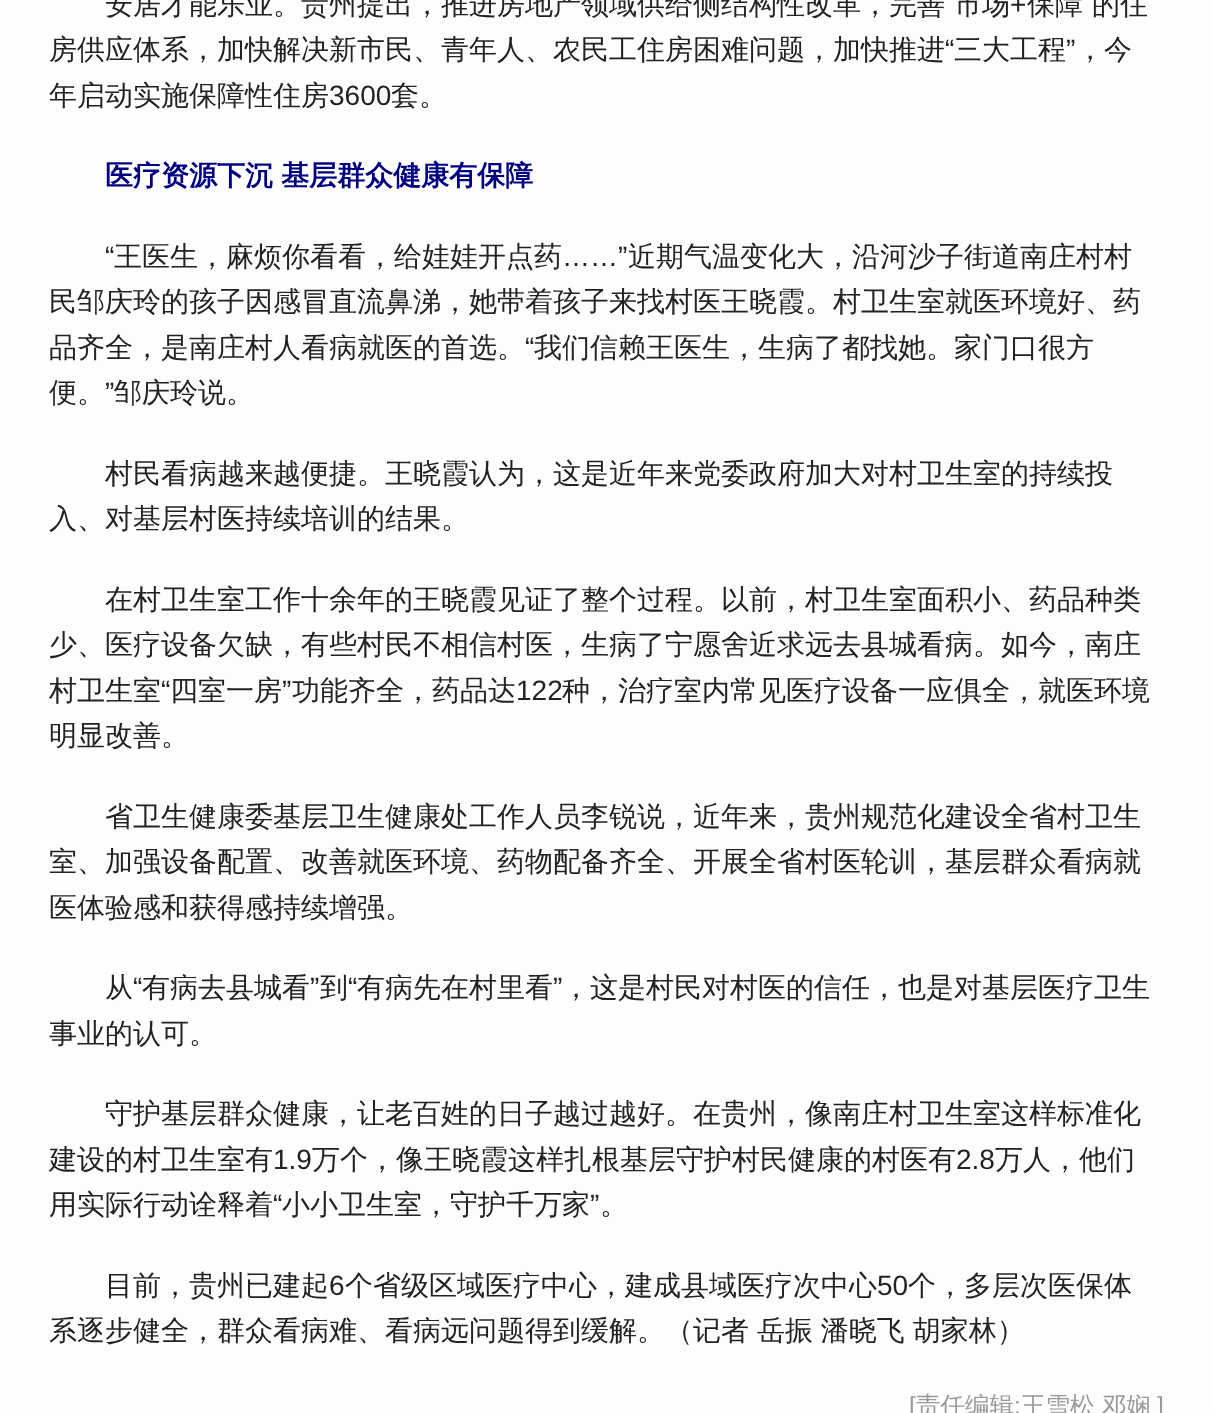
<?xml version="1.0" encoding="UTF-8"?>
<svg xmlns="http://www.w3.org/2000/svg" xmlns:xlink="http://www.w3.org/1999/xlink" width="1212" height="1413">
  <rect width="100%" height="100%" fill="#fdfdfd" />
  <text x="105" y="14" style="font-family: WenQuanYi Zen Hei; font-size: 28px; font-weight: 500; fill: #222222">安居才能乐业。贵州提出，推进房地产领域供给侧结构性改革，完善</text>
  <text x="954" y="14" style="font-family: WenQuanYi Zen Hei; font-size: 28px; font-weight: 500; fill: #222222">市场</text>
  <text x="1010" y="14" style="font-family: Liberation Sans; font-size: 28px; fill: #222222">+</text>
  <text x="1027" y="14" style="font-family: WenQuanYi Zen Hei; font-size: 28px; font-weight: 500; fill: #222222">保障</text>
  <text x="1092" y="14" style="font-family: WenQuanYi Zen Hei; font-size: 28px; font-weight: 500; fill: #222222">的住</text>
  <text x="49" y="59" style="font-family: WenQuanYi Zen Hei; font-size: 28px; font-weight: 500; fill: #222222">房供应体系，加快解决新市民、青年人、农民工住房困难问题，加快推进</text>
  <text x="945" y="59" style="font-family: Liberation Sans; font-size: 28px; fill: #222222">“</text>
  <text x="954" y="59" style="font-family: WenQuanYi Zen Hei; font-size: 28px; font-weight: 500; fill: #222222">三大工程</text>
  <text x="1066" y="59" style="font-family: Liberation Sans; font-size: 28px; fill: #222222">”</text>
  <text x="1076" y="59" style="font-family: WenQuanYi Zen Hei; font-size: 28px; font-weight: 500; fill: #222222">，今</text>
  <text x="49" y="105" style="font-family: WenQuanYi Zen Hei; font-size: 28px; font-weight: 500; fill: #222222">年启动实施保障性住房</text>
  <text x="329" y="105" style="font-family: Liberation Sans; font-size: 28px; fill: #222222">3600</text>
  <text x="391" y="105" style="font-family: WenQuanYi Zen Hei; font-size: 28px; font-weight: 500; fill: #222222">套。</text>
  <text x="105" y="185" word-spacing="-0.5" style="font-family: WenQuanYi Zen Hei; font-size: 28px; font-weight: bold; fill: #000080">医疗资源下沉 基层群众健康有保障</text>
  <text x="105" y="266" style="font-family: Liberation Sans; font-size: 28px; fill: #222222">“</text>
  <text x="114" y="266" style="font-family: WenQuanYi Zen Hei; font-size: 28px; font-weight: 500; fill: #222222">王医生，麻烦你看看，给娃娃开点药</text>
  <text x="562" y="266" style="font-family: Liberation Sans; font-size: 28px; fill: #222222">……”</text>
  <text x="628" y="266" style="font-family: WenQuanYi Zen Hei; font-size: 28px; font-weight: 500; fill: #222222">近期气温变化大，沿河沙子街道南庄村村</text>
  <text x="49" y="311" style="font-family: WenQuanYi Zen Hei; font-size: 28px; font-weight: 500; fill: #222222">民邹庆玲的孩子因感冒直流鼻涕，她带着孩子来找村医王晓霞。村卫生室就医环境好、药</text>
  <text x="49" y="357" style="font-family: WenQuanYi Zen Hei; font-size: 28px; font-weight: 500; fill: #222222">品齐全，是南庄村人看病就医的首选。</text>
  <text x="525" y="357" style="font-family: Liberation Sans; font-size: 28px; fill: #222222">“</text>
  <text x="534" y="357" style="font-family: WenQuanYi Zen Hei; font-size: 28px; font-weight: 500; fill: #222222">我们信赖王医生，生病了都找她。家门口很方</text>
  <text x="49" y="402" style="font-family: WenQuanYi Zen Hei; font-size: 28px; font-weight: 500; fill: #222222">便。</text>
  <text x="105" y="402" style="font-family: Liberation Sans; font-size: 28px; fill: #222222">”</text>
  <text x="114" y="402" style="font-family: WenQuanYi Zen Hei; font-size: 28px; font-weight: 500; fill: #222222">邹庆玲说。</text>
  <text x="105" y="483" style="font-family: WenQuanYi Zen Hei; font-size: 28px; font-weight: 500; fill: #222222">村民看病越来越便捷。王晓霞认为，这是近年来党委政府加大对村卫生室的持续投</text>
  <text x="49" y="528" style="font-family: WenQuanYi Zen Hei; font-size: 28px; font-weight: 500; fill: #222222">入、对基层村医持续培训的结果。</text>
  <text x="105" y="609" style="font-family: WenQuanYi Zen Hei; font-size: 28px; font-weight: 500; fill: #222222">在村卫生室工作十余年的王晓霞见证了整个过程。以前，村卫生室面积小、药品种类</text>
  <text x="49" y="654" style="font-family: WenQuanYi Zen Hei; font-size: 28px; font-weight: 500; fill: #222222">少、医疗设备欠缺，有些村民不相信村医，生病了宁愿舍近求远去县城看病。如今，南庄</text>
  <text x="49" y="700" style="font-family: WenQuanYi Zen Hei; font-size: 28px; font-weight: 500; fill: #222222">村卫生室</text>
  <text x="161" y="700" style="font-family: Liberation Sans; font-size: 28px; fill: #222222">“</text>
  <text x="170" y="700" style="font-family: WenQuanYi Zen Hei; font-size: 28px; font-weight: 500; fill: #222222">四室一房</text>
  <text x="282" y="700" style="font-family: Liberation Sans; font-size: 28px; fill: #222222">”</text>
  <text x="292" y="700" style="font-family: WenQuanYi Zen Hei; font-size: 28px; font-weight: 500; fill: #222222">功能齐全，药品达</text>
  <text x="516" y="700" style="font-family: Liberation Sans; font-size: 28px; fill: #222222">122</text>
  <text x="562" y="700" style="font-family: WenQuanYi Zen Hei; font-size: 28px; font-weight: 500; fill: #222222">种，治疗室内常见医疗设备一应俱全，就医环境</text>
  <text x="49" y="745" style="font-family: WenQuanYi Zen Hei; font-size: 28px; font-weight: 500; fill: #222222">明显改善。</text>
  <text x="105" y="826" style="font-family: WenQuanYi Zen Hei; font-size: 28px; font-weight: 500; fill: #222222">省卫生健康委基层卫生健康处工作人员李锐说，近年来，贵州规范化建设全省村卫生</text>
  <text x="49" y="871" style="font-family: WenQuanYi Zen Hei; font-size: 28px; font-weight: 500; fill: #222222">室、加强设备配置、改善就医环境、药物配备齐全、开展全省村医轮训，基层群众看病就</text>
  <text x="49" y="917" style="font-family: WenQuanYi Zen Hei; font-size: 28px; font-weight: 500; fill: #222222">医体验感和获得感持续增强。</text>
  <text x="105" y="997" style="font-family: WenQuanYi Zen Hei; font-size: 28px; font-weight: 500; fill: #222222">从</text>
  <text x="133" y="997" style="font-family: Liberation Sans; font-size: 28px; fill: #222222">“</text>
  <text x="142" y="997" style="font-family: WenQuanYi Zen Hei; font-size: 28px; font-weight: 500; fill: #222222">有病去县城看</text>
  <text x="310" y="997" style="font-family: Liberation Sans; font-size: 28px; fill: #222222">”</text>
  <text x="320" y="997" style="font-family: WenQuanYi Zen Hei; font-size: 28px; font-weight: 500; fill: #222222">到</text>
  <text x="348" y="997" style="font-family: Liberation Sans; font-size: 28px; fill: #222222">“</text>
  <text x="357" y="997" style="font-family: WenQuanYi Zen Hei; font-size: 28px; font-weight: 500; fill: #222222">有病先在村里看</text>
  <text x="553" y="997" style="font-family: Liberation Sans; font-size: 28px; fill: #222222">”</text>
  <text x="562" y="997" style="font-family: WenQuanYi Zen Hei; font-size: 28px; font-weight: 500; fill: #222222">，这是村民对村医的信任，也是对基层医疗卫生</text>
  <text x="49" y="1043" style="font-family: WenQuanYi Zen Hei; font-size: 28px; font-weight: 500; fill: #222222">事业的认可。</text>
  <text x="105" y="1123" style="font-family: WenQuanYi Zen Hei; font-size: 28px; font-weight: 500; fill: #222222">守护基层群众健康，让老百姓的日子越过越好。在贵州，像南庄村卫生室这样标准化</text>
  <text x="49" y="1169" style="font-family: WenQuanYi Zen Hei; font-size: 28px; font-weight: 500; fill: #222222">建设的村卫生室有</text>
  <text x="273" y="1169" style="font-family: Liberation Sans; font-size: 28px; fill: #222222">1.9</text>
  <text x="312" y="1169" style="font-family: WenQuanYi Zen Hei; font-size: 28px; font-weight: 500; fill: #222222">万个，像王晓霞这样扎根基层守护村民健康的村医有</text>
  <text x="956" y="1169" style="font-family: Liberation Sans; font-size: 28px; fill: #222222">2.8</text>
  <text x="995" y="1169" style="font-family: WenQuanYi Zen Hei; font-size: 28px; font-weight: 500; fill: #222222">万人，他们</text>
  <text x="49" y="1214" style="font-family: WenQuanYi Zen Hei; font-size: 28px; font-weight: 500; fill: #222222">用实际行动诠释着</text>
  <text x="273" y="1214" style="font-family: Liberation Sans; font-size: 28px; fill: #222222">“</text>
  <text x="282" y="1214" style="font-family: WenQuanYi Zen Hei; font-size: 28px; font-weight: 500; fill: #222222">小小卫生室，守护千万家</text>
  <text x="590" y="1214" style="font-family: Liberation Sans; font-size: 28px; fill: #222222">”</text>
  <text x="600" y="1214" style="font-family: WenQuanYi Zen Hei; font-size: 28px; font-weight: 500; fill: #222222">。</text>
  <text x="105" y="1295" style="font-family: WenQuanYi Zen Hei; font-size: 28px; font-weight: 500; fill: #222222">目前，贵州已建起</text>
  <text x="329" y="1295" style="font-family: Liberation Sans; font-size: 28px; fill: #222222">6</text>
  <text x="345" y="1295" style="font-family: WenQuanYi Zen Hei; font-size: 28px; font-weight: 500; fill: #222222">个省级区域医疗中心，建成县域医疗次中心</text>
  <text x="877" y="1295" style="font-family: Liberation Sans; font-size: 28px; fill: #222222">50</text>
  <text x="908" y="1295" style="font-family: WenQuanYi Zen Hei; font-size: 28px; font-weight: 500; fill: #222222">个，多层次医保体</text>
  <text x="49" y="1340" word-spacing="-0.5" style="font-family: WenQuanYi Zen Hei; font-size: 28px; font-weight: 500; fill: #222222">系逐步健全，群众看病难、看病远问题得到缓解。（记者 岳振 潘晓飞 胡家林）</text>
  <text x="909" y="1414" style="font-family: Liberation Sans; font-size: 24.5px; fill: #999999">[</text>
  <text x="916" y="1414" style="font-family: WenQuanYi Zen Hei; font-size: 24.5px; font-weight: 500; fill: #999999">责任编辑</text>
  <text x="1014" y="1414" style="font-family: Liberation Sans; font-size: 24.5px; fill: #999999">:</text>
  <text x="1021" y="1414" style="font-family: WenQuanYi Zen Hei; font-size: 24.5px; font-weight: 500; fill: #999999">王雪松 邓娴</text>
  <text x="1157" y="1414" style="font-family: Liberation Sans; font-size: 24.5px; fill: #999999">]</text>
</svg>
